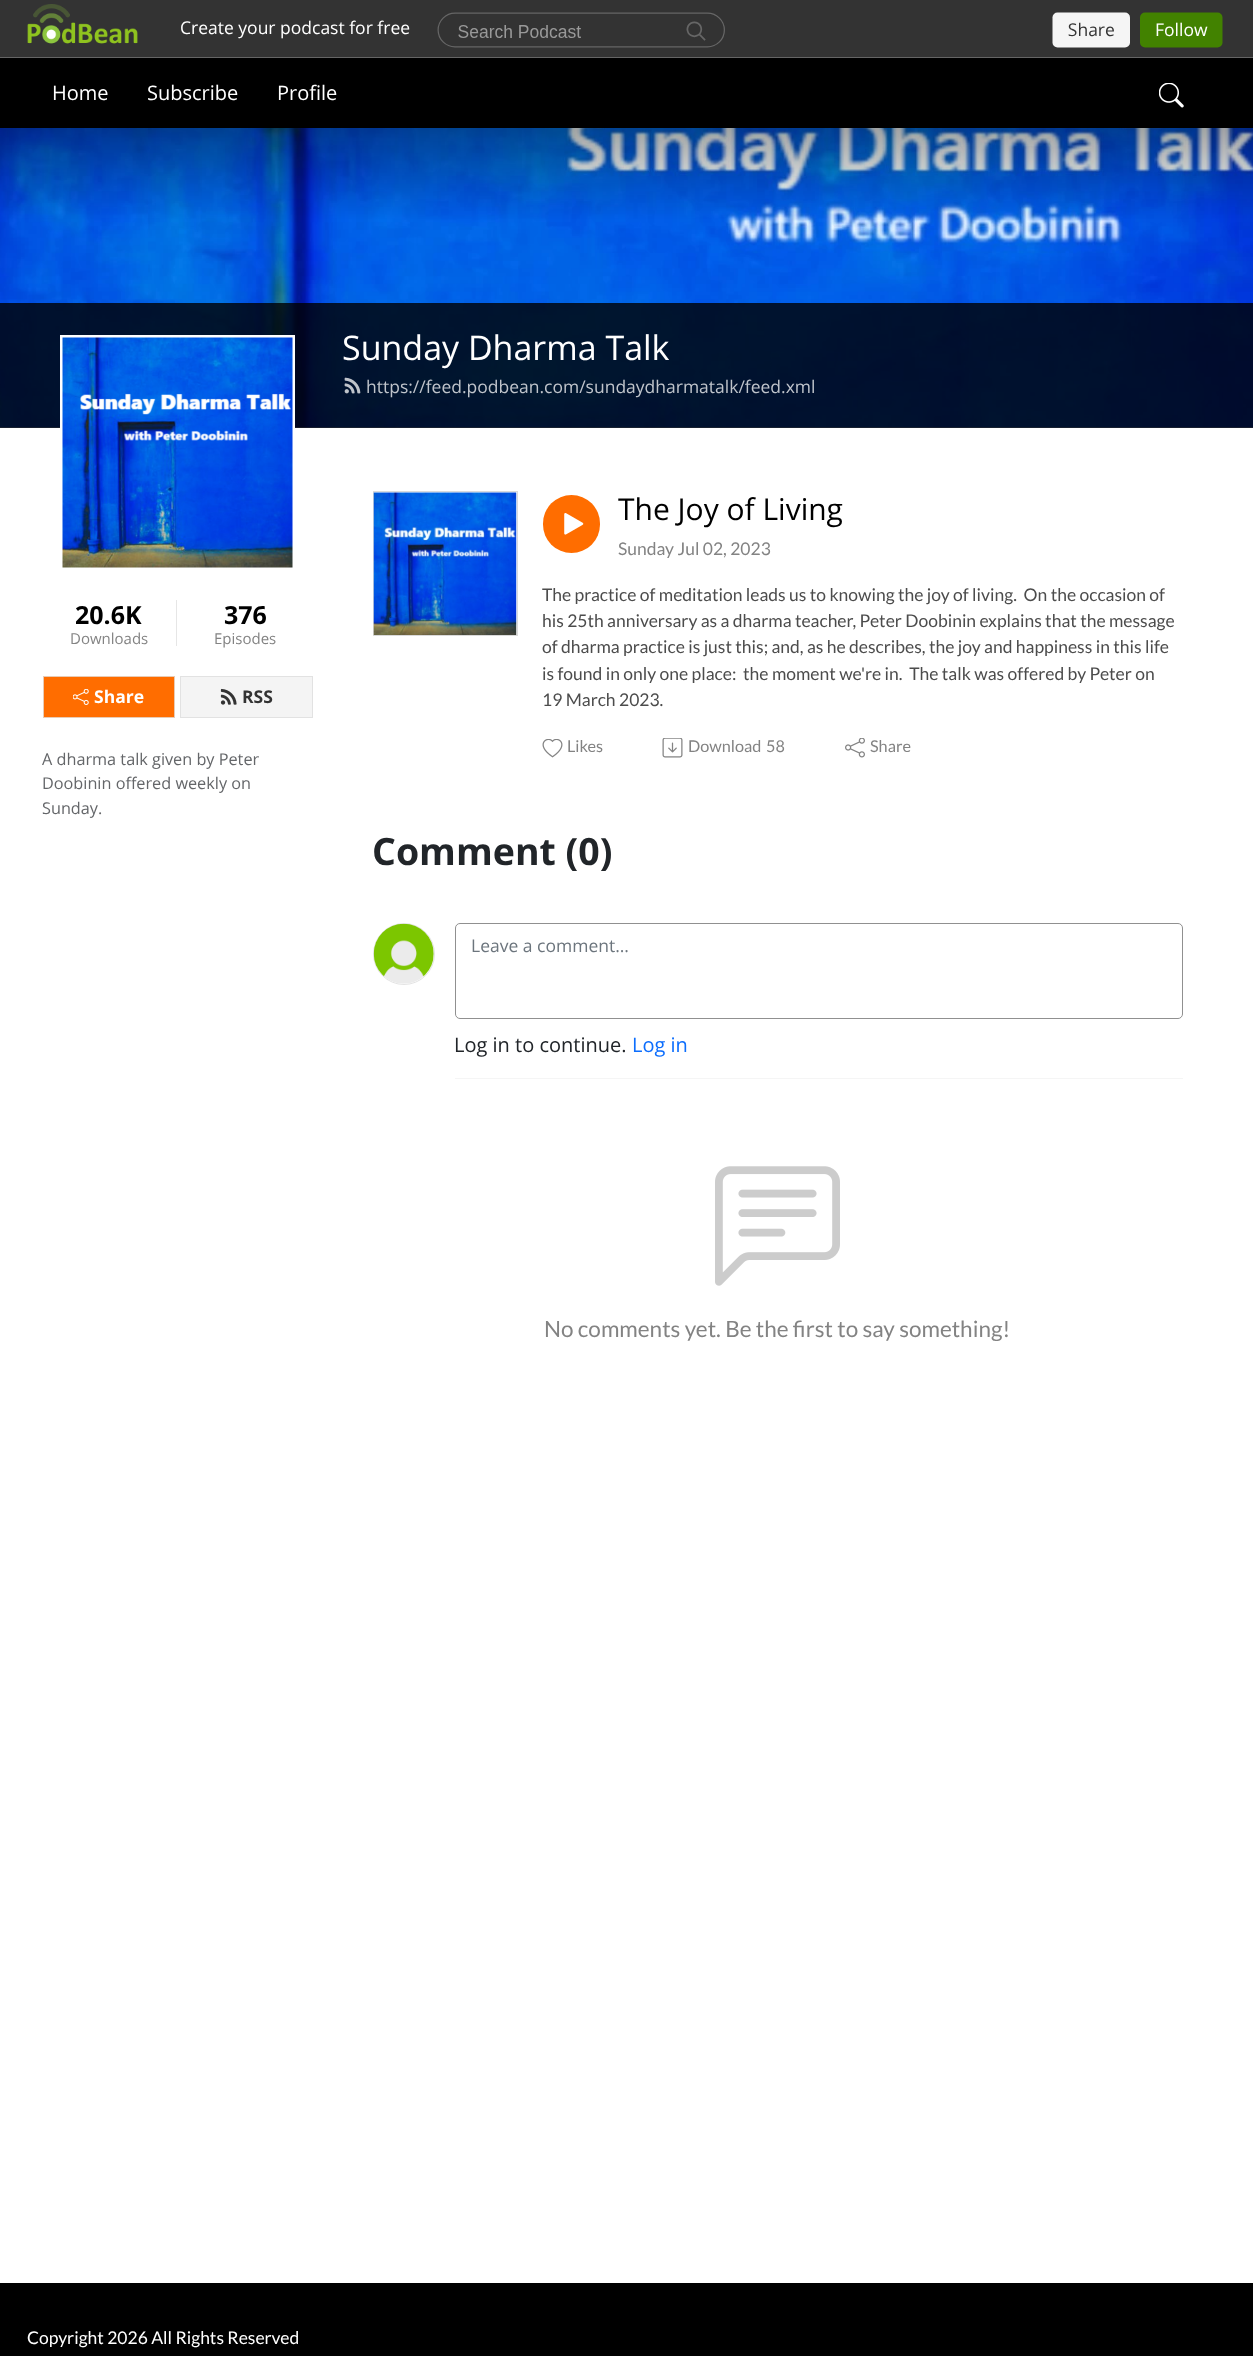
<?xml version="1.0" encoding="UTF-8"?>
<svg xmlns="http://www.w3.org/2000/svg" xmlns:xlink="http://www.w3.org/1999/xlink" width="1253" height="2356">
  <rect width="100%" height="100%" fill="#ffffff" />
  <rect width="1253" height="4" fill="#333333" />
  <image x="0" y="4" width="1253" height="54" xlink:href="image1.png" />
  <rect y="58" width="1253" height="70" fill="#000000" />
  <image x="1159" y="83" width="25" height="25" xlink:href="image2.png" />
  <image x="0" y="128" width="1253" height="300" xlink:href="image3.png" />
  <rect y="303" width="1253" height="125" fill="#000000" fill-opacity="0.8" />
  <image x="344" y="377" width="17" height="17" xlink:href="image4.png" />
  <rect x="61.5" y="336.5" width="232" height="232" fill="none" stroke="#ffffff" stroke-width="3" />
  <image x="62" y="337" width="231" height="231" xlink:href="image5.png" />
  <rect x="176" y="600" width="1" height="46" fill="#e6e6e6" />
  <rect x="43.5" y="676.5" width="131" height="41" fill="#ff6d00" stroke="#e8cbb5" />
  <image x="73" y="689" width="16" height="16" xlink:href="image6.png" />
  <rect x="180.5" y="676.5" width="132" height="41" fill="#f4f4f4" stroke="#e2e2e2" />
  <image x="220" y="688" width="17" height="17" xlink:href="image7.png" />
  <rect x="373.5" y="491.5" width="144" height="144" fill="none" stroke="#dadada" />
  <image x="373" y="492" width="144" height="143" xlink:href="image8.png" />
  <rect x="543" y="495" width="57" height="58" rx="28.5" fill="#ff6d00" />
  <image x="564" y="513" width="20" height="22" xlink:href="image9.png" />
  <image x="542" y="739" width="21" height="19" xlink:href="image10.png" />
  <image x="662" y="738" width="21" height="20" xlink:href="image11.png" />
  <image x="845" y="738" width="20" height="20" xlink:href="image12.png" />
  <circle cx="404" cy="954" r="30.5" fill="none" stroke="#e3e3e3" />
  <image x="373" y="923" width="61" height="61" xlink:href="image13.png" />
  <rect x="455" y="1078" width="728" height="1" fill="#f5f5f5" />
  <rect x="455.5" y="923.5" width="727" height="95" rx="4.5" fill="none" stroke="#909090" />
  <image x="715" y="1166" width="125" height="120" xlink:href="image14.png" />
  <rect y="2283" width="1253" height="73" fill="#000000" />
  <text x="52" y="100" style="font-family: Open Sans; font-size: 20px; fill: #ffffff">Home</text>
  <text x="147" y="100" style="font-family: Open Sans; font-size: 20px; fill: #ffffff">Subscribe</text>
  <text x="277" y="100" style="font-family: Open Sans; font-size: 20px; fill: #ffffff">Profile</text>
  <text x="342" y="360" style="font-family: Open Sans; font-size: 34px; fill: #ffffff">Sunday Dharma Talk</text>
  <text x="366" y="393" style="font-family: Open Sans; font-size: 17.5px; fill: #bfc4cb">https://feed.podbean.com/sundaydharmatalk/feed.xml</text>
  <text x="75" y="624" style="font-family: Open Sans; font-size: 25px; font-weight: bold; fill: #000000">20.6K</text>
  <text x="70" y="644" style="font-family: Open Sans; font-size: 15px; fill: #838383">Downloads</text>
  <text x="224" y="624" style="font-family: Open Sans; font-size: 25px; font-weight: bold; fill: #000000">376</text>
  <text x="214" y="644" style="font-family: Open Sans; font-size: 15px; fill: #838383">Episodes</text>
  <text x="94" y="703" style="font-family: Open Sans; font-size: 17.5px; font-weight: bold; fill: #ffffff">Share</text>
  <text x="242" y="703" style="font-family: Open Sans; font-size: 17.5px; font-weight: bold; fill: #333333">RSS</text>
  <text x="42" y="765" style="font-family: Open Sans; font-size: 16.25px; fill: #646669">A dharma talk given by Peter</text>
  <text x="42" y="789" style="font-family: Open Sans; font-size: 16.25px; fill: #646669">Doobinin offered weekly on</text>
  <text x="42" y="814" style="font-family: Open Sans; font-size: 16.25px; fill: #646669">Sunday.</text>
  <text x="618" y="520" style="font-family: Open Sans; font-size: 30px; fill: #000000">The Joy of Living</text>
  <text x="618" y="555" style="font-family: Lato; font-size: 17.5px; fill: #838383">Sunday Jul 02, 2023</text>
  <text x="542" y="601" style="font-family: Lato; font-size: 17.5px; fill: #4c4c4c" xml:space="preserve">The practice of meditation leads us to knowing the joy of living.  On the occasion of</text>
  <text x="542" y="627" style="font-family: Lato; font-size: 17.5px; fill: #4c4c4c">his 25th anniversary as a dharma teacher, Peter Doobinin explains that the message</text>
  <text x="542" y="653" style="font-family: Lato; font-size: 17.5px; fill: #4c4c4c">of dharma practice is just this; and, as he describes, the joy and happiness in this life</text>
  <text x="542" y="680" style="font-family: Lato; font-size: 17.5px; fill: #4c4c4c" xml:space="preserve">is found in only one place:  the moment we're in.  The talk was offered by Peter on</text>
  <text x="542" y="706" style="font-family: Lato; font-size: 17.5px; fill: #4c4c4c">19 March 2023.</text>
  <text x="567" y="752" style="font-family: Lato; font-size: 16.25px; fill: #838383">Likes</text>
  <text x="688" y="752" style="font-family: Lato; font-size: 16.25px; fill: #838383">Download</text>
  <text x="766" y="752" style="font-family: Lato; font-size: 16.25px; fill: #838383">58</text>
  <text x="870" y="752" style="font-family: Lato; font-size: 16.25px; fill: #838383">Share</text>
  <text x="372" y="865" style="font-family: Open Sans; font-size: 37.5px; font-weight: bold; fill: #212529">Comment (0)</text>
  <text x="471" y="952" style="font-family: Open Sans; font-size: 17.5px; fill: #6c757d">Leave a comment...</text>
  <text x="454" y="1052" style="font-family: Open Sans; font-size: 20px; fill: #212529">Log in to continue.</text>
  <text x="632" y="1052" style="font-family: Open Sans; font-size: 20px; fill: #0d6efd">Log in</text>
  <text x="544" y="1337" style="font-family: Lato; font-size: 22.5px; fill: #838383">No comments yet. Be the first to say something!</text>
  <text x="27" y="2344" style="font-family: Lato; font-size: 17.5px; fill: #ffffff">Copyright 2026 All Rights Reserved</text>
</svg>
